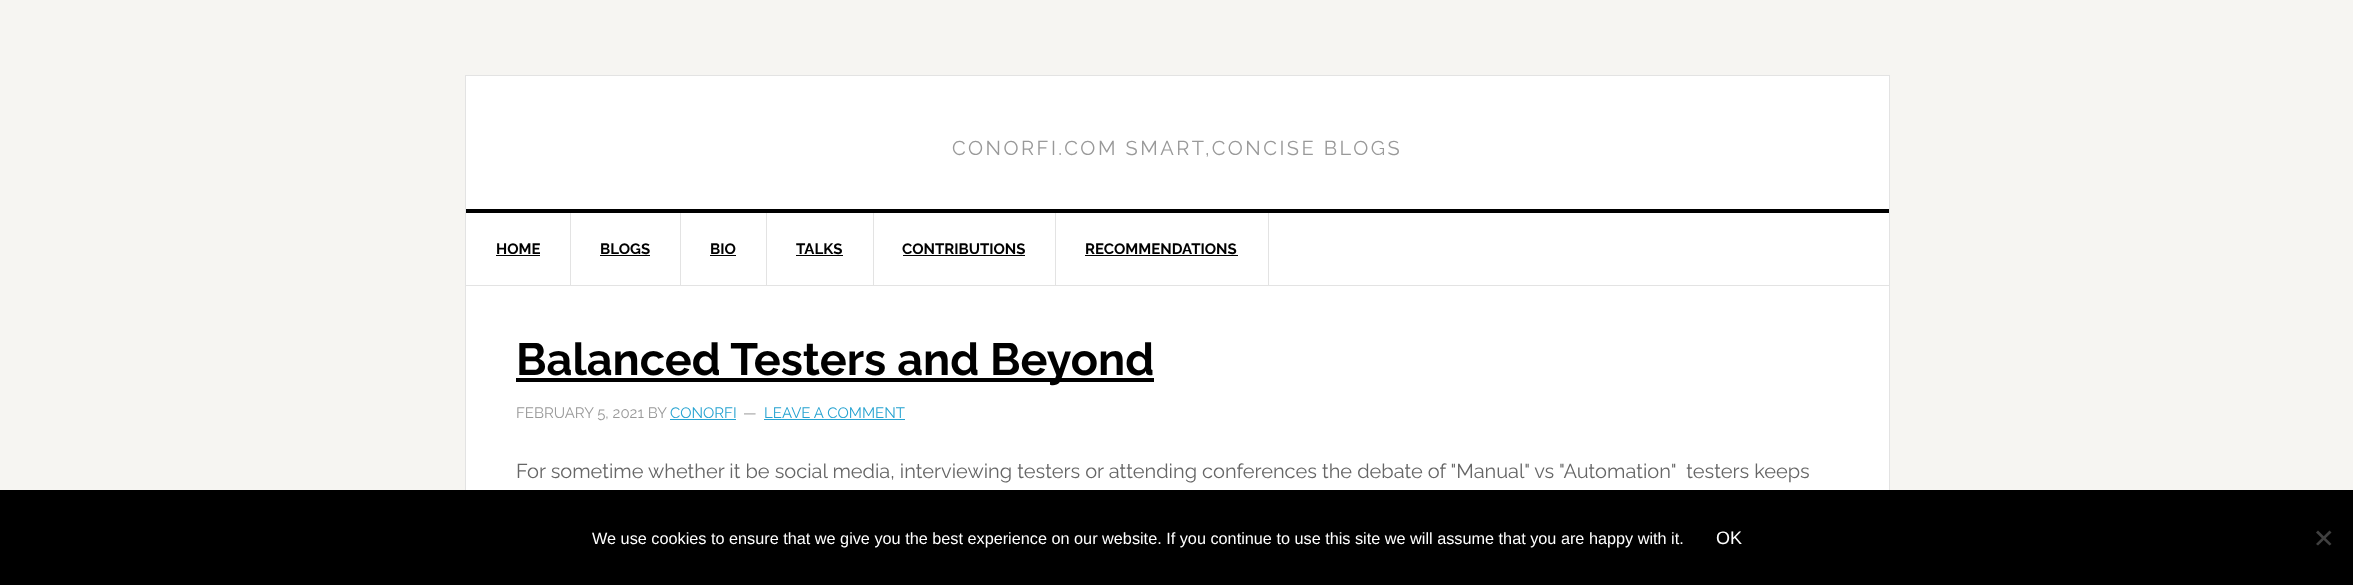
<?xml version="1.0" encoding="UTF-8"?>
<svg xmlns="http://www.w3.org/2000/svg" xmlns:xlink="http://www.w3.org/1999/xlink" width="2353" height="585">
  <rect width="100%" height="100%" fill="#f6f5f2" />
  <rect x="466" y="76" width="1423" height="414" fill="#ffffff" />
  <rect x="465.5" y="75.5" width="1424" height="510" fill="none" stroke="#e3e3e3" />
  <rect x="466" y="209" width="1423" height="4" fill="#000000" />
  <rect x="466" y="285" width="1423" height="1" fill="#e3e3e3" />
  <rect x="570" y="213" width="1" height="72" fill="#e3e3e3" />
  <rect x="496" y="255" width="44" height="1" fill="#000000" />
  <rect x="680" y="213" width="1" height="72" fill="#e3e3e3" />
  <rect x="600" y="255" width="50" height="1" fill="#000000" />
  <rect x="766" y="213" width="1" height="72" fill="#e3e3e3" />
  <rect x="710" y="255" width="26" height="1" fill="#000000" />
  <rect x="873" y="213" width="1" height="72" fill="#e3e3e3" />
  <rect x="796" y="255" width="47" height="1" fill="#000000" />
  <rect x="1055" y="213" width="1" height="72" fill="#e3e3e3" />
  <rect x="903" y="255" width="122" height="1" fill="#000000" />
  <rect x="1268" y="213" width="1" height="72" fill="#e3e3e3" />
  <rect x="1085" y="255" width="153" height="1" fill="#000000" />
  <rect x="516" y="378" width="638" height="4" fill="#000000" />
  <rect x="670" y="419" width="66" height="1" fill="#27a3d1" />
  <rect x="764" y="419" width="141" height="1" fill="#27a3d1" />
  <rect y="490" width="2353" height="95" fill="#000000" />
  <path d="M 2329.5 530.5 l 2 2 l -13.5 13 l -2 -1.5 z" fill="#404040" />
  <path d="M 2316 532.5 l 2 -2 l 13.5 13.5 l -2 1.5 z" fill="#404040" />
  <text x="952" y="155" style="font-family: Raleway; font-size: 20px; letter-spacing: 2.5px; fill: #999999">CONORFI.COM SMART,CONCISE BLOGS</text>
  <text x="496" y="254" style="font-family: Raleway; font-size: 15px; font-weight: bold; fill: #000000">HOME</text>
  <text x="600" y="254" style="font-family: Raleway; font-size: 15px; font-weight: bold; fill: #000000">BLOGS</text>
  <text x="710" y="254" style="font-family: Raleway; font-size: 15px; font-weight: bold; fill: #000000">BIO</text>
  <text x="796" y="254" style="font-family: Raleway; font-size: 15px; font-weight: bold; fill: #000000">TALKS</text>
  <text x="902" y="254" style="font-family: Raleway; font-size: 15px; font-weight: bold; fill: #000000">CONTRIBUTIONS</text>
  <text x="1085" y="254" style="font-family: Raleway; font-size: 15px; font-weight: bold; fill: #000000">RECOMMENDATIONS</text>
  <text x="516" y="375" style="font-family: Raleway; font-size: 45px; font-weight: bold; fill: #000000">Balanced Testers and Beyond</text>
  <text x="516" y="418" style="font-family: Raleway; font-size: 15px; fill: #999999">FEBRUARY 5, 2021 BY</text>
  <text x="670" y="418" style="font-family: Raleway; font-size: 15px; fill: #27a3d1">CONORFI</text>
  <text x="743" y="418" style="font-family: Raleway; font-size: 15px; fill: #999999">—</text>
  <text x="764" y="418" style="font-family: Raleway; font-size: 15px; fill: #27a3d1">LEAVE A COMMENT</text>
  <text x="516" y="478" style="font-family: Raleway; font-size: 20px; fill: #666666" xml:space="preserve">For sometime whether it be social media, interviewing testers or attending conferences the debate of "Manual" vs "Automation"  testers keeps</text>
  <text x="592" y="544" style="font-family: Liberation Sans; font-size: 16.25px; fill: #ffffff">We use cookies to ensure that we give you the best experience on our website. If you continue to use this site we will assume that you are happy with it.</text>
  <text x="1716" y="544" style="font-family: Liberation Sans; font-size: 18px; fill: #ffffff">OK</text>
</svg>
